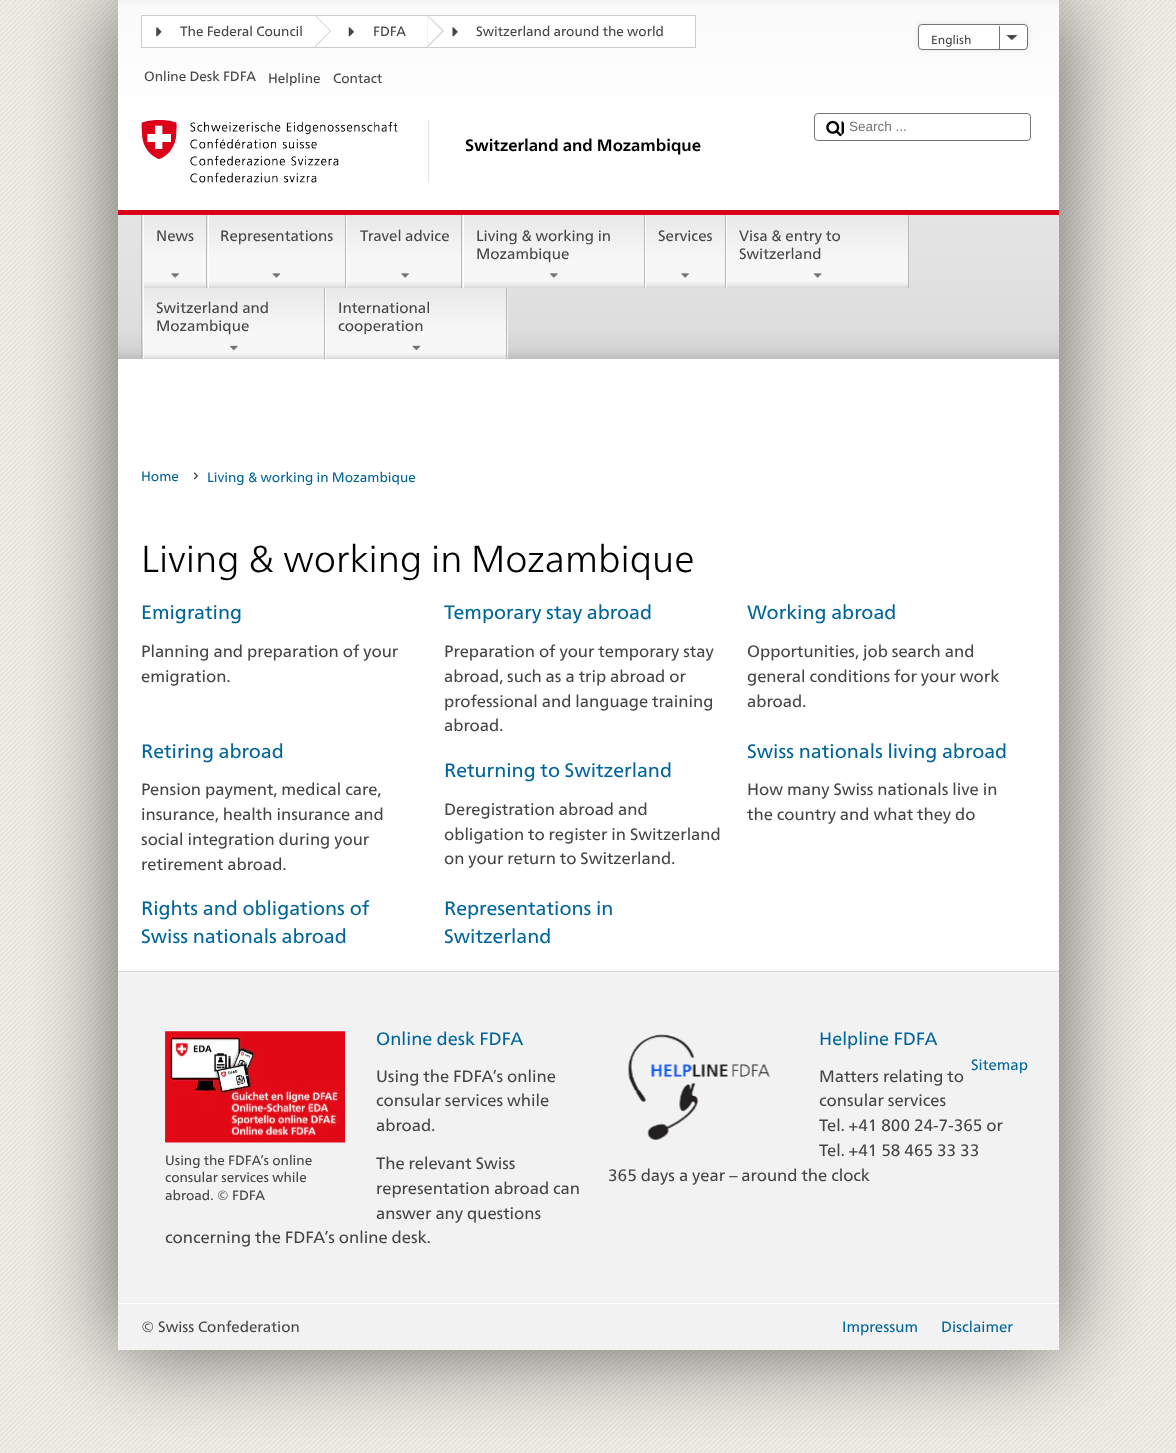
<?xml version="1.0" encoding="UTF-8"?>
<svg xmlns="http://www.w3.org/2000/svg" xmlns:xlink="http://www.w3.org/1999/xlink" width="1176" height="1453">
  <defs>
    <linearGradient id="g1" gradientUnits="userSpaceOnUse" x1="588" y1="0" x2="588" y2="120"><stop offset="0" stop-color="#f2f2f2" /><stop offset="0.07" stop-color="#fafafa" /><stop offset="1" stop-color="#ffffff" /></linearGradient>
    <linearGradient id="g2" gradientUnits="userSpaceOnUse" x1="588" y1="215" x2="588" y2="359"><stop offset="0" stop-color="#e4e4e4" /><stop offset="0.39" stop-color="#e2e2e2" /><stop offset="0.79" stop-color="#dddddd" /><stop offset="0.91" stop-color="#d5d5d5" /><stop offset="0.95" stop-color="#cfcfcf" /><stop offset="1" stop-color="#bebebe" /></linearGradient>
    <linearGradient id="g3" gradientUnits="userSpaceOnUse" x1="175" y1="215" x2="175" y2="288"><stop offset="0" stop-color="#e8e8e8" /><stop offset="0.61" stop-color="#f7f7f7" /><stop offset="0.89" stop-color="#f7f7f7" /><stop offset="0.91" stop-color="#f5f5f5" /><stop offset="0.95" stop-color="#ececec" /><stop offset="1" stop-color="#d7d7d7" /></linearGradient>
    <linearGradient id="g4" gradientUnits="userSpaceOnUse" x1="277" y1="215" x2="277" y2="288"><stop offset="0" stop-color="#e8e8e8" /><stop offset="0.61" stop-color="#f7f7f7" /><stop offset="0.89" stop-color="#f7f7f7" /><stop offset="0.91" stop-color="#f5f5f5" /><stop offset="0.95" stop-color="#ececec" /><stop offset="1" stop-color="#d7d7d7" /></linearGradient>
    <linearGradient id="g5" gradientUnits="userSpaceOnUse" x1="404" y1="215" x2="404" y2="288"><stop offset="0" stop-color="#e8e8e8" /><stop offset="0.61" stop-color="#f7f7f7" /><stop offset="0.89" stop-color="#f7f7f7" /><stop offset="0.91" stop-color="#f5f5f5" /><stop offset="0.95" stop-color="#ececec" /><stop offset="1" stop-color="#d7d7d7" /></linearGradient>
    <linearGradient id="g6" gradientUnits="userSpaceOnUse" x1="554" y1="215" x2="554" y2="288"><stop offset="0" stop-color="#e8e8e8" /><stop offset="0.61" stop-color="#f7f7f7" /><stop offset="0.89" stop-color="#f7f7f7" /><stop offset="0.91" stop-color="#f5f5f5" /><stop offset="0.95" stop-color="#ececec" /><stop offset="1" stop-color="#d7d7d7" /></linearGradient>
    <linearGradient id="g7" gradientUnits="userSpaceOnUse" x1="686" y1="215" x2="686" y2="288"><stop offset="0" stop-color="#e8e8e8" /><stop offset="0.61" stop-color="#f7f7f7" /><stop offset="0.89" stop-color="#f7f7f7" /><stop offset="0.91" stop-color="#f5f5f5" /><stop offset="0.95" stop-color="#ececec" /><stop offset="1" stop-color="#d7d7d7" /></linearGradient>
    <linearGradient id="g8" gradientUnits="userSpaceOnUse" x1="818" y1="215" x2="818" y2="288"><stop offset="0" stop-color="#e8e8e8" /><stop offset="0.61" stop-color="#f7f7f7" /><stop offset="0.89" stop-color="#f7f7f7" /><stop offset="0.91" stop-color="#f5f5f5" /><stop offset="0.95" stop-color="#ececec" /><stop offset="1" stop-color="#d7d7d7" /></linearGradient>
    <linearGradient id="g9" gradientUnits="userSpaceOnUse" x1="234" y1="288" x2="234" y2="359"><stop offset="0" stop-color="#e8e8e8" /><stop offset="0.61" stop-color="#f7f7f7" /><stop offset="0.89" stop-color="#f7f7f7" /><stop offset="0.91" stop-color="#f5f5f5" /><stop offset="0.95" stop-color="#ececec" /><stop offset="1" stop-color="#d7d7d7" /></linearGradient>
    <linearGradient id="g10" gradientUnits="userSpaceOnUse" x1="416" y1="288" x2="416" y2="359"><stop offset="0" stop-color="#e8e8e8" /><stop offset="0.61" stop-color="#f7f7f7" /><stop offset="0.89" stop-color="#f7f7f7" /><stop offset="0.91" stop-color="#f5f5f5" /><stop offset="0.95" stop-color="#ececec" /><stop offset="1" stop-color="#d7d7d7" /></linearGradient>
  </defs>
  <rect width="100%" height="100%" fill="#ffffff" />
  <image x="0" y="0" width="1176" height="1453" xlink:href="image1.png" />
  <rect x="118" width="941" height="1350" fill="#000000" fill-opacity="0.6" filter="blur(45px)" />
  <rect x="118" y="120" width="941" height="851" fill="#ffffff" />
  <rect x="118" width="941" height="120" fill="url(#g1)" />
  <rect x="141.5" y="15.5" width="554" height="32" fill="#ffffff" stroke="#cccccc" />
  <path d="M 315 47.5 v -32.5 l 16 16 z" fill="#cccccc" />
  <image x="156" y="27" width="6" height="10" xlink:href="image2.png" />
  <path d="M 315 46 v -30 l 15 15 z" fill="#ffffff" />
  <path d="M 427.5 47.5 v -32.5 l 16.5 16 z" fill="#cccccc" />
  <image x="348" y="27" width="6" height="10" xlink:href="image3.png" />
  <path d="M 427.5 46 v -30 l 15 15 z" fill="#ffffff" />
  <image x="452" y="27" width="6" height="10" xlink:href="image4.png" />
  <rect x="918" y="24" width="110" height="26" rx="4" fill="#000000" fill-opacity="0.1" filter="blur(2.5px)" />
  <rect x="918.5" y="24.5" width="109" height="25" rx="3.5" fill="#ffffff" stroke="#757575" />
  <image x="1006" y="35" width="12" height="5" xlink:href="image5.png" />
  <rect x="999" y="26" width="1" height="23" fill="#757575" />
  <rect x="814.5" y="113.5" width="216" height="27" rx="3.5" fill="none" stroke="#757575" />
  <image x="826" y="120" width="18" height="17" xlink:href="image6.png" />
  <image x="141" y="120" width="257" height="63" xlink:href="image7.png" />
  <rect x="428" y="120" width="1" height="63" fill="#e5e5e5" />
  <rect x="118" y="215" width="941" height="144" fill="url(#g2)" />
  <rect x="118" y="210" width="941" height="5" fill="#dc0018" />
  <rect x="141" y="215" width="1" height="144" fill="#b8b8b8" />
  <rect x="144" y="215" width="64" height="73" fill="url(#g3)" />
  <rect x="206" y="215" width="1" height="73" fill="#b8b8b8" />
  <rect x="143" y="215" width="1" height="144" fill="#ffffff" />
  <image x="171" y="273" width="8" height="5" xlink:href="image8.png" />
  <rect x="209" y="215" width="136" height="73" fill="url(#g4)" />
  <rect x="345" y="215" width="1" height="73" fill="#b8b8b8" />
  <rect x="208" y="215" width="1" height="73" fill="#ffffff" />
  <image x="272" y="273" width="9" height="5" xlink:href="image9.png" />
  <rect x="347" y="215" width="116" height="73" fill="url(#g5)" />
  <rect x="461" y="215" width="1" height="73" fill="#b8b8b8" />
  <rect x="346" y="215" width="1" height="73" fill="#ffffff" />
  <image x="401" y="273" width="8" height="5" xlink:href="image8.png" />
  <rect x="464" y="215" width="180" height="73" fill="url(#g6)" />
  <rect x="644" y="215" width="1" height="73" fill="#b8b8b8" />
  <rect x="463" y="215" width="1" height="73" fill="#ffffff" />
  <image x="550" y="273" width="8" height="5" xlink:href="image10.png" />
  <rect x="646" y="215" width="79" height="73" fill="url(#g7)" />
  <rect x="725" y="215" width="1" height="73" fill="#b8b8b8" />
  <rect x="645" y="215" width="1" height="73" fill="#ffffff" />
  <image x="681" y="273" width="8" height="5" xlink:href="image8.png" />
  <rect x="727" y="215" width="181" height="73" fill="url(#g8)" />
  <rect x="908" y="215" width="1" height="73" fill="#b8b8b8" />
  <rect x="726" y="215" width="1" height="73" fill="#ffffff" />
  <image x="813" y="273" width="9" height="5" xlink:href="image11.png" />
  <rect x="144" y="288" width="180" height="71" fill="url(#g9)" />
  <rect x="324" y="288" width="1" height="71" fill="#b8b8b8" />
  <image x="230" y="345" width="8" height="6" xlink:href="image12.png" />
  <rect x="326" y="288" width="182" height="71" fill="url(#g10)" />
  <rect x="506" y="288" width="1" height="71" fill="#b8b8b8" />
  <rect x="325" y="288" width="1" height="71" fill="#ffffff" />
  <image x="412" y="345" width="9" height="6" xlink:href="image13.png" />
  <image x="193" y="472" width="5" height="8" xlink:href="image14.png" />
  <rect x="118" y="972" width="941" height="378" fill="#f2f2f2" />
  <rect x="118" y="971" width="941" height="1" fill="#d5d5d5" />
  <image x="165" y="1031" width="180" height="112" xlink:href="image15.png" />
  <image x="628" y="1034" width="142" height="107" xlink:href="image16.png" />
  <rect x="118" y="1303" width="941" height="1" fill="#ffffff" />
  <text x="180" y="36" style="font-family: 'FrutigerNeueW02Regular'; font-size: 13.5px; fill: #454545">The Federal Council</text>
  <text x="373" y="36" style="font-family: 'FrutigerNeueW02Regular'; font-size: 13.5px; fill: #454545">FDFA</text>
  <text x="476" y="36" style="font-family: 'FrutigerNeueW02Regular'; font-size: 13.5px; fill: #454545">Switzerland around the world</text>
  <text x="931" y="44" style="font-family: 'FrutigerNeueW02Regular'; font-size: 12px; fill: #454545">English</text>
  <text x="144" y="81" style="font-family: 'FrutigerNeueW02Regular'; font-size: 13.5px; fill: #454545">Online Desk FDFA</text>
  <text x="268" y="83" style="font-family: 'FrutigerNeueW02Regular'; font-size: 13.5px; fill: #454545">Helpline</text>
  <text x="333" y="83" style="font-family: 'FrutigerNeueW02Regular'; font-size: 13.5px; fill: #454545">Contact</text>
  <text x="849" y="131" style="font-family: Liberation Sans; font-size: 13.5px; fill: #757575">Search ...</text>
  <text x="465" y="151" style="font-family: 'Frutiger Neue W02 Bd'; font-size: 16.5px; font-weight: bold; fill: #000000">Switzerland and Mozambique</text>
  <text x="156" y="241" style="font-family: 'FrutigerNeueW02Regular'; font-size: 15px; fill: #454545">News</text>
  <text x="220" y="241" style="font-family: 'FrutigerNeueW02Regular'; font-size: 15px; fill: #454545">Representations</text>
  <text x="360" y="241" style="font-family: 'FrutigerNeueW02Regular'; font-size: 15px; fill: #454545">Travel advice</text>
  <text x="476" y="241" style="font-family: 'FrutigerNeueW02Regular'; font-size: 15px; fill: #454545">Living &amp; working in</text>
  <text x="476" y="259" style="font-family: 'FrutigerNeueW02Regular'; font-size: 15px; fill: #454545">Mozambique</text>
  <text x="658" y="241" style="font-family: 'FrutigerNeueW02Regular'; font-size: 15px; fill: #454545">Services</text>
  <text x="739" y="241" style="font-family: 'FrutigerNeueW02Regular'; font-size: 15px; fill: #454545">Visa &amp; entry to</text>
  <text x="739" y="259" style="font-family: 'FrutigerNeueW02Regular'; font-size: 15px; fill: #454545">Switzerland</text>
  <text x="156" y="313" style="font-family: 'FrutigerNeueW02Regular'; font-size: 15px; fill: #454545">Switzerland and</text>
  <text x="156" y="331" style="font-family: 'FrutigerNeueW02Regular'; font-size: 15px; fill: #454545">Mozambique</text>
  <text x="338" y="313" style="font-family: 'FrutigerNeueW02Regular'; font-size: 15px; fill: #454545">International</text>
  <text x="338" y="331" style="font-family: 'FrutigerNeueW02Regular'; font-size: 15px; fill: #454545">cooperation</text>
  <text x="141" y="481" style="font-family: 'FrutigerNeueW02Regular'; font-size: 13.5px; fill: #006699">Home</text>
  <text x="207" y="482" style="font-family: 'FrutigerNeueW02Regular'; font-size: 13.5px; fill: #006699">Living &amp; working in Mozambique</text>
  <text x="141" y="572" style="font-family: 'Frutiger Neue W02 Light'; font-size: 37.5px; font-weight: 300; fill: #000000">Living &amp; working in Mozambique</text>
  <text x="141" y="619" style="font-family: 'FrutigerNeueW02Regular'; font-size: 19.5px; fill: #006699">Emigrating</text>
  <text x="141" y="657" style="font-family: 'FrutigerNeueW02Regular'; font-size: 16.5px; fill: #454545">Planning and preparation of your</text>
  <text x="141" y="682" style="font-family: 'FrutigerNeueW02Regular'; font-size: 16.5px; fill: #454545">emigration.</text>
  <text x="141" y="758" style="font-family: 'FrutigerNeueW02Regular'; font-size: 19.5px; fill: #006699">Retiring abroad</text>
  <text x="141" y="795" style="font-family: 'FrutigerNeueW02Regular'; font-size: 16.5px; fill: #454545">Pension payment, medical care,</text>
  <text x="141" y="820" style="font-family: 'FrutigerNeueW02Regular'; font-size: 16.5px; fill: #454545">insurance, health insurance and</text>
  <text x="141" y="845" style="font-family: 'FrutigerNeueW02Regular'; font-size: 16.5px; fill: #454545">social integration during your</text>
  <text x="141" y="870" style="font-family: 'FrutigerNeueW02Regular'; font-size: 16.5px; fill: #454545">retirement abroad.</text>
  <text x="141" y="915" style="font-family: 'FrutigerNeueW02Regular'; font-size: 19.5px; fill: #006699">Rights and obligations of</text>
  <text x="141" y="943" style="font-family: 'FrutigerNeueW02Regular'; font-size: 19.5px; fill: #006699">Swiss nationals abroad</text>
  <text x="444" y="619" style="font-family: 'FrutigerNeueW02Regular'; font-size: 19.5px; fill: #006699">Temporary stay abroad</text>
  <text x="444" y="657" style="font-family: 'FrutigerNeueW02Regular'; font-size: 16.5px; fill: #454545">Preparation of your temporary stay</text>
  <text x="444" y="682" style="font-family: 'FrutigerNeueW02Regular'; font-size: 16.5px; fill: #454545">abroad, such as a trip abroad or</text>
  <text x="444" y="707" style="font-family: 'FrutigerNeueW02Regular'; font-size: 16.5px; fill: #454545">professional and language training</text>
  <text x="444" y="731" style="font-family: 'FrutigerNeueW02Regular'; font-size: 16.5px; fill: #454545">abroad.</text>
  <text x="444" y="777" style="font-family: 'FrutigerNeueW02Regular'; font-size: 19.5px; fill: #006699">Returning to Switzerland</text>
  <text x="444" y="815" style="font-family: 'FrutigerNeueW02Regular'; font-size: 16.5px; fill: #454545">Deregistration abroad and</text>
  <text x="444" y="840" style="font-family: 'FrutigerNeueW02Regular'; font-size: 16.5px; fill: #454545">obligation to register in Switzerland</text>
  <text x="444" y="864" style="font-family: 'FrutigerNeueW02Regular'; font-size: 16.5px; fill: #454545">on your return to Switzerland.</text>
  <text x="444" y="915" style="font-family: 'FrutigerNeueW02Regular'; font-size: 19.5px; fill: #006699">Representations in</text>
  <text x="444" y="943" style="font-family: 'FrutigerNeueW02Regular'; font-size: 19.5px; fill: #006699">Switzerland</text>
  <text x="747" y="619" style="font-family: 'FrutigerNeueW02Regular'; font-size: 19.5px; fill: #006699">Working abroad</text>
  <text x="747" y="657" style="font-family: 'FrutigerNeueW02Regular'; font-size: 16.5px; fill: #454545">Opportunities, job search and</text>
  <text x="747" y="682" style="font-family: 'FrutigerNeueW02Regular'; font-size: 16.5px; fill: #454545">general conditions for your work</text>
  <text x="747" y="707" style="font-family: 'FrutigerNeueW02Regular'; font-size: 16.5px; fill: #454545">abroad.</text>
  <text x="747" y="758" style="font-family: 'FrutigerNeueW02Regular'; font-size: 19.5px; fill: #006699">Swiss nationals living abroad</text>
  <text x="747" y="795" style="font-family: 'FrutigerNeueW02Regular'; font-size: 16.5px; fill: #454545">How many Swiss nationals live in</text>
  <text x="747" y="820" style="font-family: 'FrutigerNeueW02Regular'; font-size: 16.5px; fill: #454545">the country and what they do</text>
  <text x="376" y="1045" style="font-family: 'FrutigerNeueW02Regular'; font-size: 18px; fill: #006699">Online desk FDFA</text>
  <text x="376" y="1082" style="font-family: 'FrutigerNeueW02Regular'; font-size: 16.5px; fill: #454545">Using the FDFA’s online</text>
  <text x="376" y="1106" style="font-family: 'FrutigerNeueW02Regular'; font-size: 16.5px; fill: #454545">consular services while</text>
  <text x="376" y="1131" style="font-family: 'FrutigerNeueW02Regular'; font-size: 16.5px; fill: #454545">abroad.</text>
  <text x="165" y="1165" style="font-family: 'FrutigerNeueW02Regular'; font-size: 13.5px; fill: #454545">Using the FDFA’s online</text>
  <text x="165" y="1182" style="font-family: 'FrutigerNeueW02Regular'; font-size: 13.5px; fill: #454545">consular services while</text>
  <text x="165" y="1200" style="font-family: 'FrutigerNeueW02Regular'; font-size: 13.5px; fill: #454545">abroad. © FDFA</text>
  <text x="376" y="1169" style="font-family: 'FrutigerNeueW02Regular'; font-size: 16.5px; fill: #454545">The relevant Swiss</text>
  <text x="376" y="1194" style="font-family: 'FrutigerNeueW02Regular'; font-size: 16.5px; fill: #454545">representation abroad can</text>
  <text x="376" y="1219" style="font-family: 'FrutigerNeueW02Regular'; font-size: 16.5px; fill: #454545">answer any questions</text>
  <text x="165" y="1243" style="font-family: 'FrutigerNeueW02Regular'; font-size: 16.5px; fill: #454545">concerning the FDFA’s online desk.</text>
  <text x="819" y="1045" style="font-family: 'FrutigerNeueW02Regular'; font-size: 18px; fill: #006699">Helpline FDFA</text>
  <text x="819" y="1082" style="font-family: 'FrutigerNeueW02Regular'; font-size: 16.5px; fill: #454545">Matters relating to</text>
  <text x="819" y="1106" style="font-family: 'FrutigerNeueW02Regular'; font-size: 16.5px; fill: #454545">consular services</text>
  <text x="819" y="1131" style="font-family: 'FrutigerNeueW02Regular'; font-size: 16.5px; fill: #454545">Tel. +41 800 24-7-365 or</text>
  <text x="819" y="1156" style="font-family: 'FrutigerNeueW02Regular'; font-size: 16.5px; fill: #454545">Tel. +41 58 465 33 33</text>
  <text x="608" y="1181" style="font-family: 'FrutigerNeueW02Regular'; font-size: 16.5px; fill: #454545">365 days a year – around the clock</text>
  <text x="971" y="1070" style="font-family: 'FrutigerNeueW02Regular'; font-size: 15px; fill: #006699">Sitemap</text>
  <text x="141" y="1332" style="font-family: 'FrutigerNeueW02Regular'; font-size: 15px; fill: #454545">© Swiss Confederation</text>
  <text x="842" y="1332" style="font-family: 'FrutigerNeueW02Regular'; font-size: 15px; fill: #006699">Impressum</text>
  <text x="941" y="1332" style="font-family: 'FrutigerNeueW02Regular'; font-size: 15px; fill: #006699">Disclaimer</text>
</svg>
